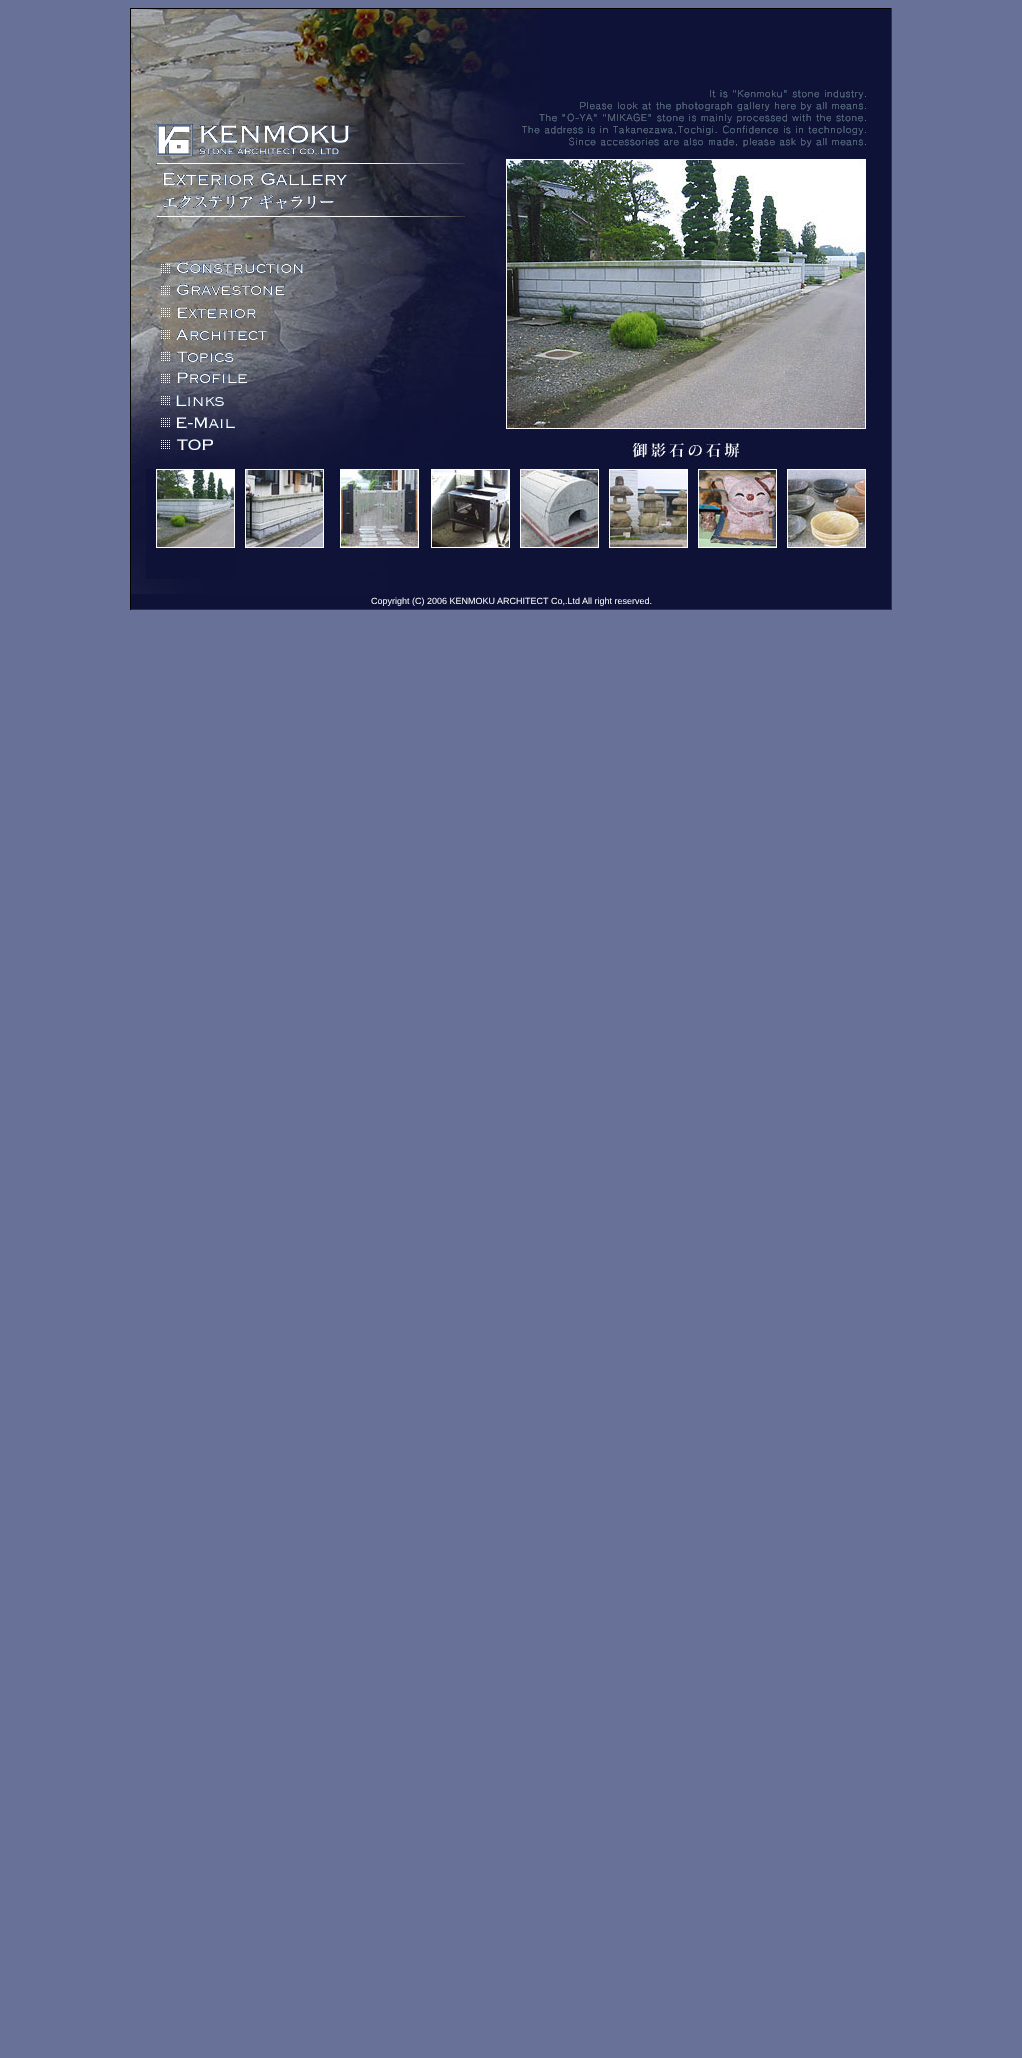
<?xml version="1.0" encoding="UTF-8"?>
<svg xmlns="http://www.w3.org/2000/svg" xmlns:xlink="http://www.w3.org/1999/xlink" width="1022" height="2058">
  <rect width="100%" height="100%" fill="#687197" />
  <rect x="539" y="9" width="352" height="585" fill="#0e1237" />
  <image x="131" y="9" width="408" height="585" xlink:href="image1.png" />
  <rect x="130" y="8" width="762" height="1" fill="#000000" />
  <rect x="891" y="8" width="1" height="602" fill="#333333" />
  <rect x="130" y="609" width="762" height="1" fill="#333333" />
  <rect x="130" y="8" width="1" height="602" fill="#000000" />
  <image x="156" y="124" width="309" height="93" xlink:href="image2.png" />
  <image x="522" y="90" width="344" height="57" xlink:href="image3.png" />
  <image x="161" y="262" width="142" height="11" xlink:href="image4.png" />
  <image x="506" y="159" width="360" height="304" xlink:href="image5.png" />
  <image x="161" y="284" width="124" height="12" xlink:href="image6.png" />
  <image x="161" y="307" width="95" height="12" xlink:href="image7.png" />
  <image x="161" y="329" width="106" height="12" xlink:href="image8.png" />
  <image x="161" y="351" width="73" height="11" xlink:href="image9.png" />
  <image x="161" y="372" width="86" height="12" xlink:href="image10.png" />
  <image x="161" y="395" width="63" height="12" xlink:href="image11.png" />
  <image x="161" y="417" width="74" height="12" xlink:href="image12.png" />
  <image x="161" y="439" width="52" height="11" xlink:href="image13.png" />
  <image x="146" y="469" width="89" height="110" xlink:href="image14.png" />
  <image x="243" y="469" width="81" height="80" xlink:href="image15.png" />
  <image x="338" y="469" width="81" height="80" xlink:href="image16.png" />
  <image x="429" y="469" width="81" height="80" xlink:href="image17.png" />
  <image x="518" y="469" width="81" height="80" xlink:href="image18.png" />
  <image x="607" y="469" width="81" height="80" xlink:href="image19.png" />
  <image x="696" y="469" width="81" height="80" xlink:href="image20.png" />
  <image x="785" y="469" width="81" height="80" xlink:href="image21.png" />
  <rect x="131" y="594" width="760" height="15" fill="#0e1237" />
  <text x="371" y="604" style="font-family: Liberation Sans; font-size: 9px; fill: #ffffff">Copyright (C) 2006 KENMOKU ARCHITECT Co,.Ltd All right reserved.</text>
</svg>
